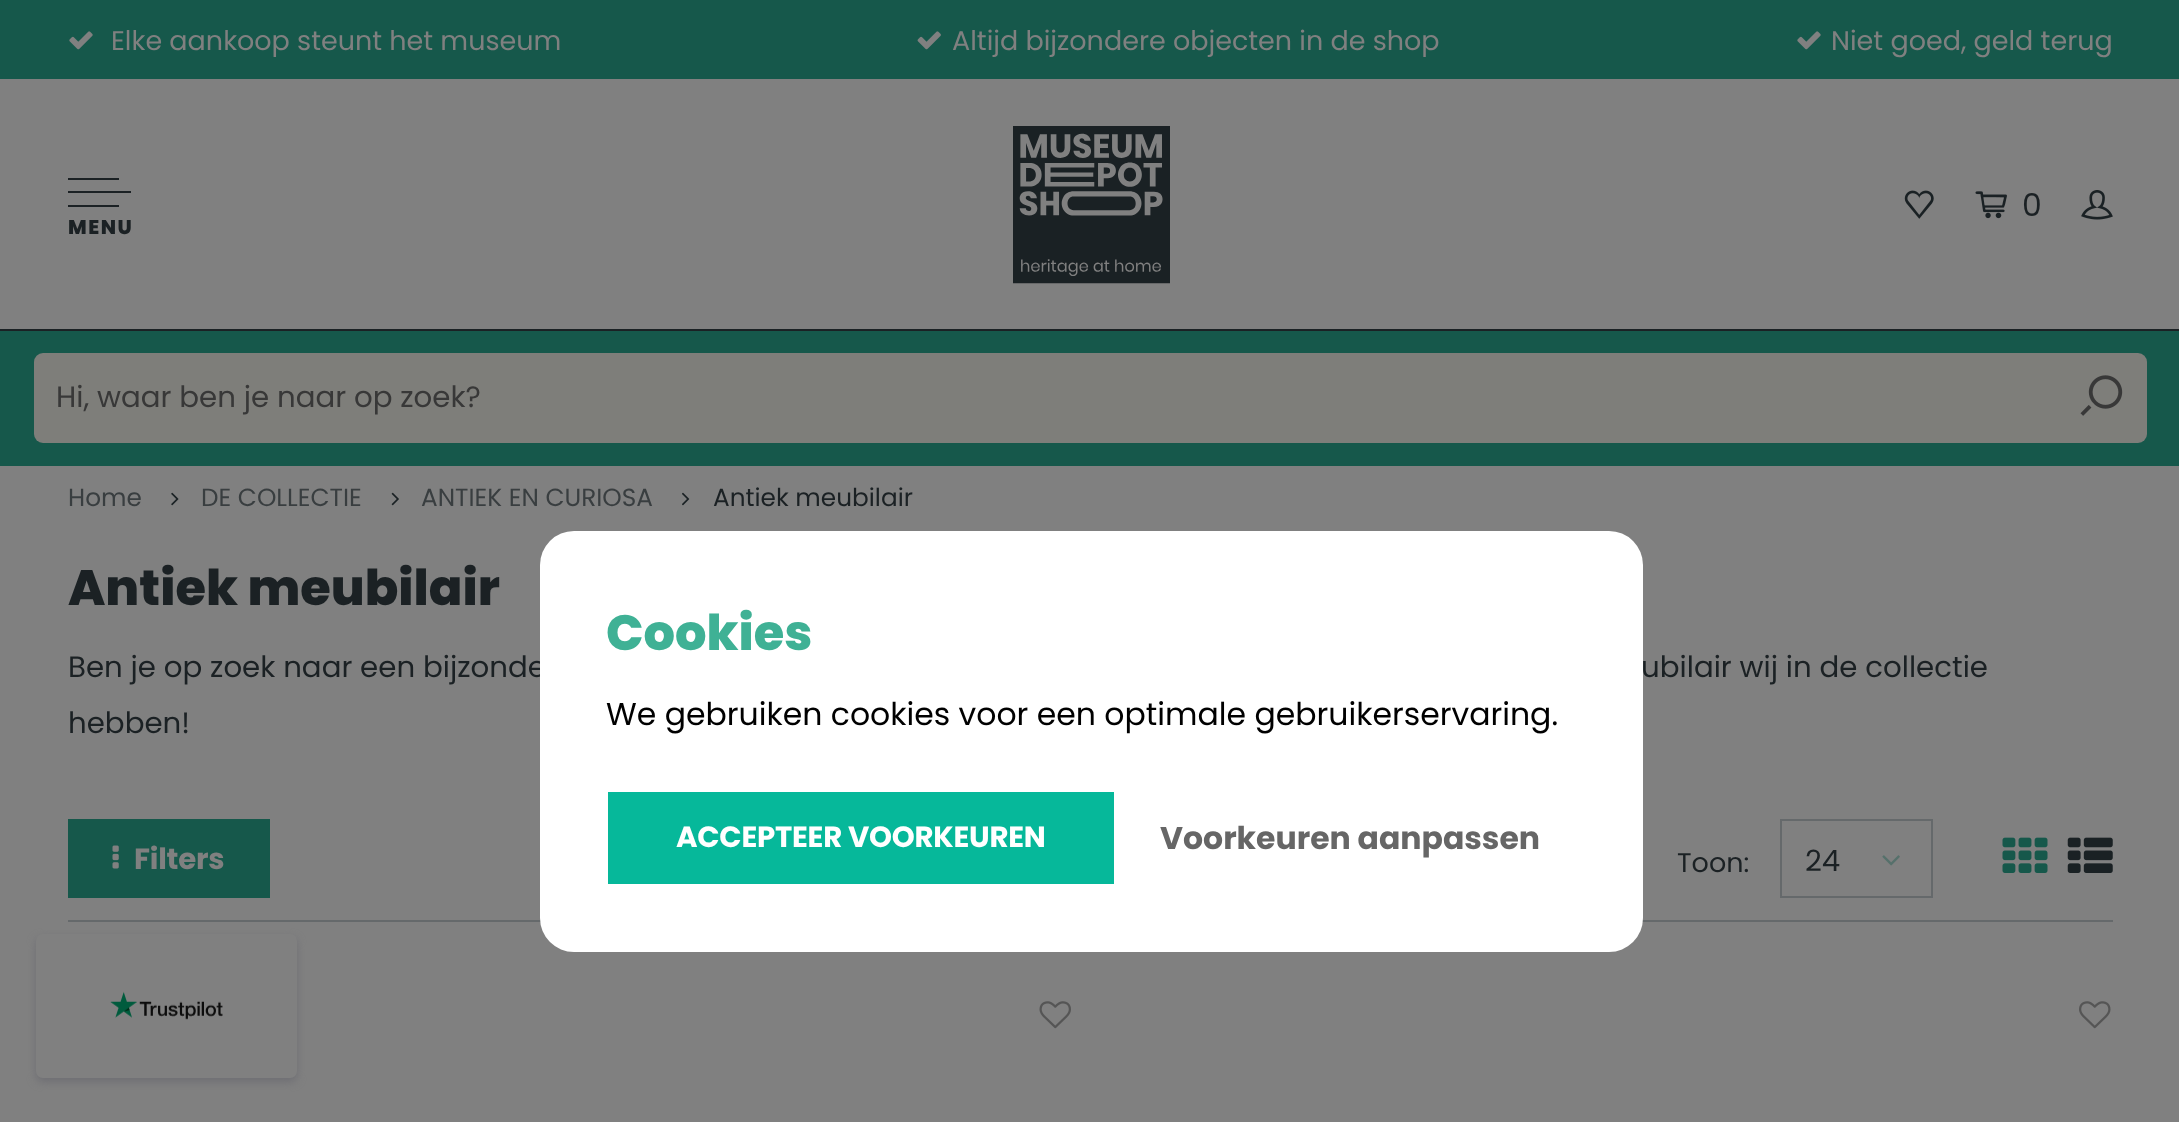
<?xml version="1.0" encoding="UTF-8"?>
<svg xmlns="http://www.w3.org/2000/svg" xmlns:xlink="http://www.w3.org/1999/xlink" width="2179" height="1122">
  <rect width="100%" height="100%" fill="#808080" />
  <rect width="2179" height="79" fill="#16584b" />
  <image x="69" y="31" width="24" height="19" xlink:href="image1.png" />
  <image x="917" y="31" width="24" height="19" xlink:href="image2.png" />
  <image x="1797" y="31" width="24" height="19" xlink:href="image1.png" />
  <rect y="329" width="2179" height="2" fill="#1b2124" />
  <image x="1013" y="126" width="157" height="158" xlink:href="image3.png" />
  <image x="1904" y="190" width="30" height="29" xlink:href="image4.png" />
  <image x="1975" y="191" width="32" height="28" xlink:href="image5.png" />
  <image x="2081" y="190" width="32" height="30" xlink:href="image6.png" />
  <rect x="68" y="178" width="51" height="2" fill="#1b2124" />
  <rect x="68" y="191" width="63" height="2" fill="#1b2124" />
  <rect x="68" y="205" width="51" height="2" fill="#1b2124" />
  <rect y="331" width="2179" height="135" fill="#16584b" />
  <rect x="34" y="353" width="2113" height="90" rx="9" fill="#7e7e7a" />
  <image x="2080" y="375" width="43" height="41" xlink:href="image7.png" />
  <image x="171" y="492" width="8" height="14" xlink:href="image8.png" />
  <image x="391" y="492" width="8" height="14" xlink:href="image9.png" />
  <image x="682" y="492" width="8" height="14" xlink:href="image10.png" />
  <rect x="68" y="920" width="2045" height="2" fill="#65696b" />
  <rect x="68" y="819" width="202" height="79" fill="#16584b" />
  <image x="112" y="845" width="7" height="24" xlink:href="image11.png" />
  <rect x="1781" y="820" width="151" height="77" fill="none" stroke="#65696b" stroke-width="2" />
  <image x="1882" y="855" width="18" height="11" xlink:href="image12.png" />
  <image x="2002" y="837" width="46" height="36" xlink:href="image13.png" />
  <image x="2067" y="837" width="46" height="36" xlink:href="image14.png" />
  <image x="1039" y="1001" width="32" height="28" xlink:href="image15.png" />
  <image x="2079" y="1001" width="32" height="28" xlink:href="image16.png" />
  <rect x="36" y="938" width="261" height="144" rx="7" fill="#6e6e73" filter="blur(4.5px)" />
  <rect x="36" y="934" width="261" height="144" rx="7" fill="#808080" />
  <image x="110" y="991" width="113" height="29" xlink:href="image17.png" />
  <text x="111" y="50" style="font-family: Poppins; font-size: 27px; fill: #808080">Elke aankoop steunt het museum</text>
  <text x="952" y="50" style="font-family: Poppins; font-size: 27px; fill: #808080">Altijd bijzondere objecten in de shop</text>
  <text x="1831" y="50" style="font-family: Poppins; font-size: 27px; fill: #808080">Niet goed, geld terug</text>
  <text x="2022" y="216" style="font-family: Poppins; font-size: 31.5px; fill: #1b2124">0</text>
  <text x="68" y="234" style="font-family: Poppins; font-size: 20px; font-weight: 800; letter-spacing: 1.5px; fill: #1b2124">MENU</text>
  <text x="56" y="407" style="font-family: Poppins; font-size: 29.25px; fill: #383838">Hi, waar ben je naar op zoek?</text>
  <text x="68" y="506" style="font-family: Poppins; font-size: 24.75px; fill: #393e40">Home</text>
  <text x="201" y="506" style="font-family: Poppins; font-size: 24.75px; fill: #393e40">DE COLLECTIE</text>
  <text x="421" y="506" style="font-family: Poppins; font-size: 24.75px; fill: #393e40">ANTIEK EN CURIOSA</text>
  <text x="713" y="506" style="font-family: Poppins; font-size: 24.75px; fill: #1b2124">Antiek meubilair</text>
  <text x="68" y="605" style="font-family: Poppins; font-size: 49.5px; font-weight: 800; fill: #1b2124">Antiek meubilair</text>
  <text x="68" y="677" style="font-family: Poppins; font-size: 29.25px; fill: #1b2124">Ben je op zoek naar een bijzonde</text>
  <text x="1641" y="677" style="font-family: Poppins; font-size: 29.25px; fill: #1b2124">ubilair wij in de collectie</text>
  <text x="68" y="733" style="font-family: Poppins; font-size: 29.25px; fill: #1b2124">hebben!</text>
  <text x="134" y="869" style="font-family: Poppins; font-size: 29.25px; font-weight: bold; letter-spacing: -0.25px; fill: #808080">Filters</text>
  <text x="1677" y="872" style="font-family: Poppins; font-size: 27px; fill: #1b2124">Toon:</text>
  <text x="1805" y="871" style="font-family: Poppins; font-size: 29.25px; fill: #1b2124">24</text>
  <rect x="540" y="531" width="1103" height="421" rx="34" fill="#ffffff" />
  <text x="606" y="650" style="font-family: Poppins; font-size: 49.5px; font-weight: 800; fill: #3fb195">Cookies</text>
  <text x="606" y="725" style="font-family: Poppins; font-size: 31.5px; fill: #000000">We gebruiken cookies voor een optimale gebruikerservaring.</text>
  <rect x="608" y="792" width="506" height="92" fill="#06b89a" />
  <text x="676" y="847" style="font-family: Poppins; font-size: 29.25px; font-weight: bold; letter-spacing: -0.25px; fill: #ffffff">ACCEPTEER VOORKEUREN</text>
  <text x="1160" y="849" style="font-family: Poppins; font-size: 31.5px; font-weight: bold; fill: #666666">Voorkeuren aanpassen</text>
</svg>
